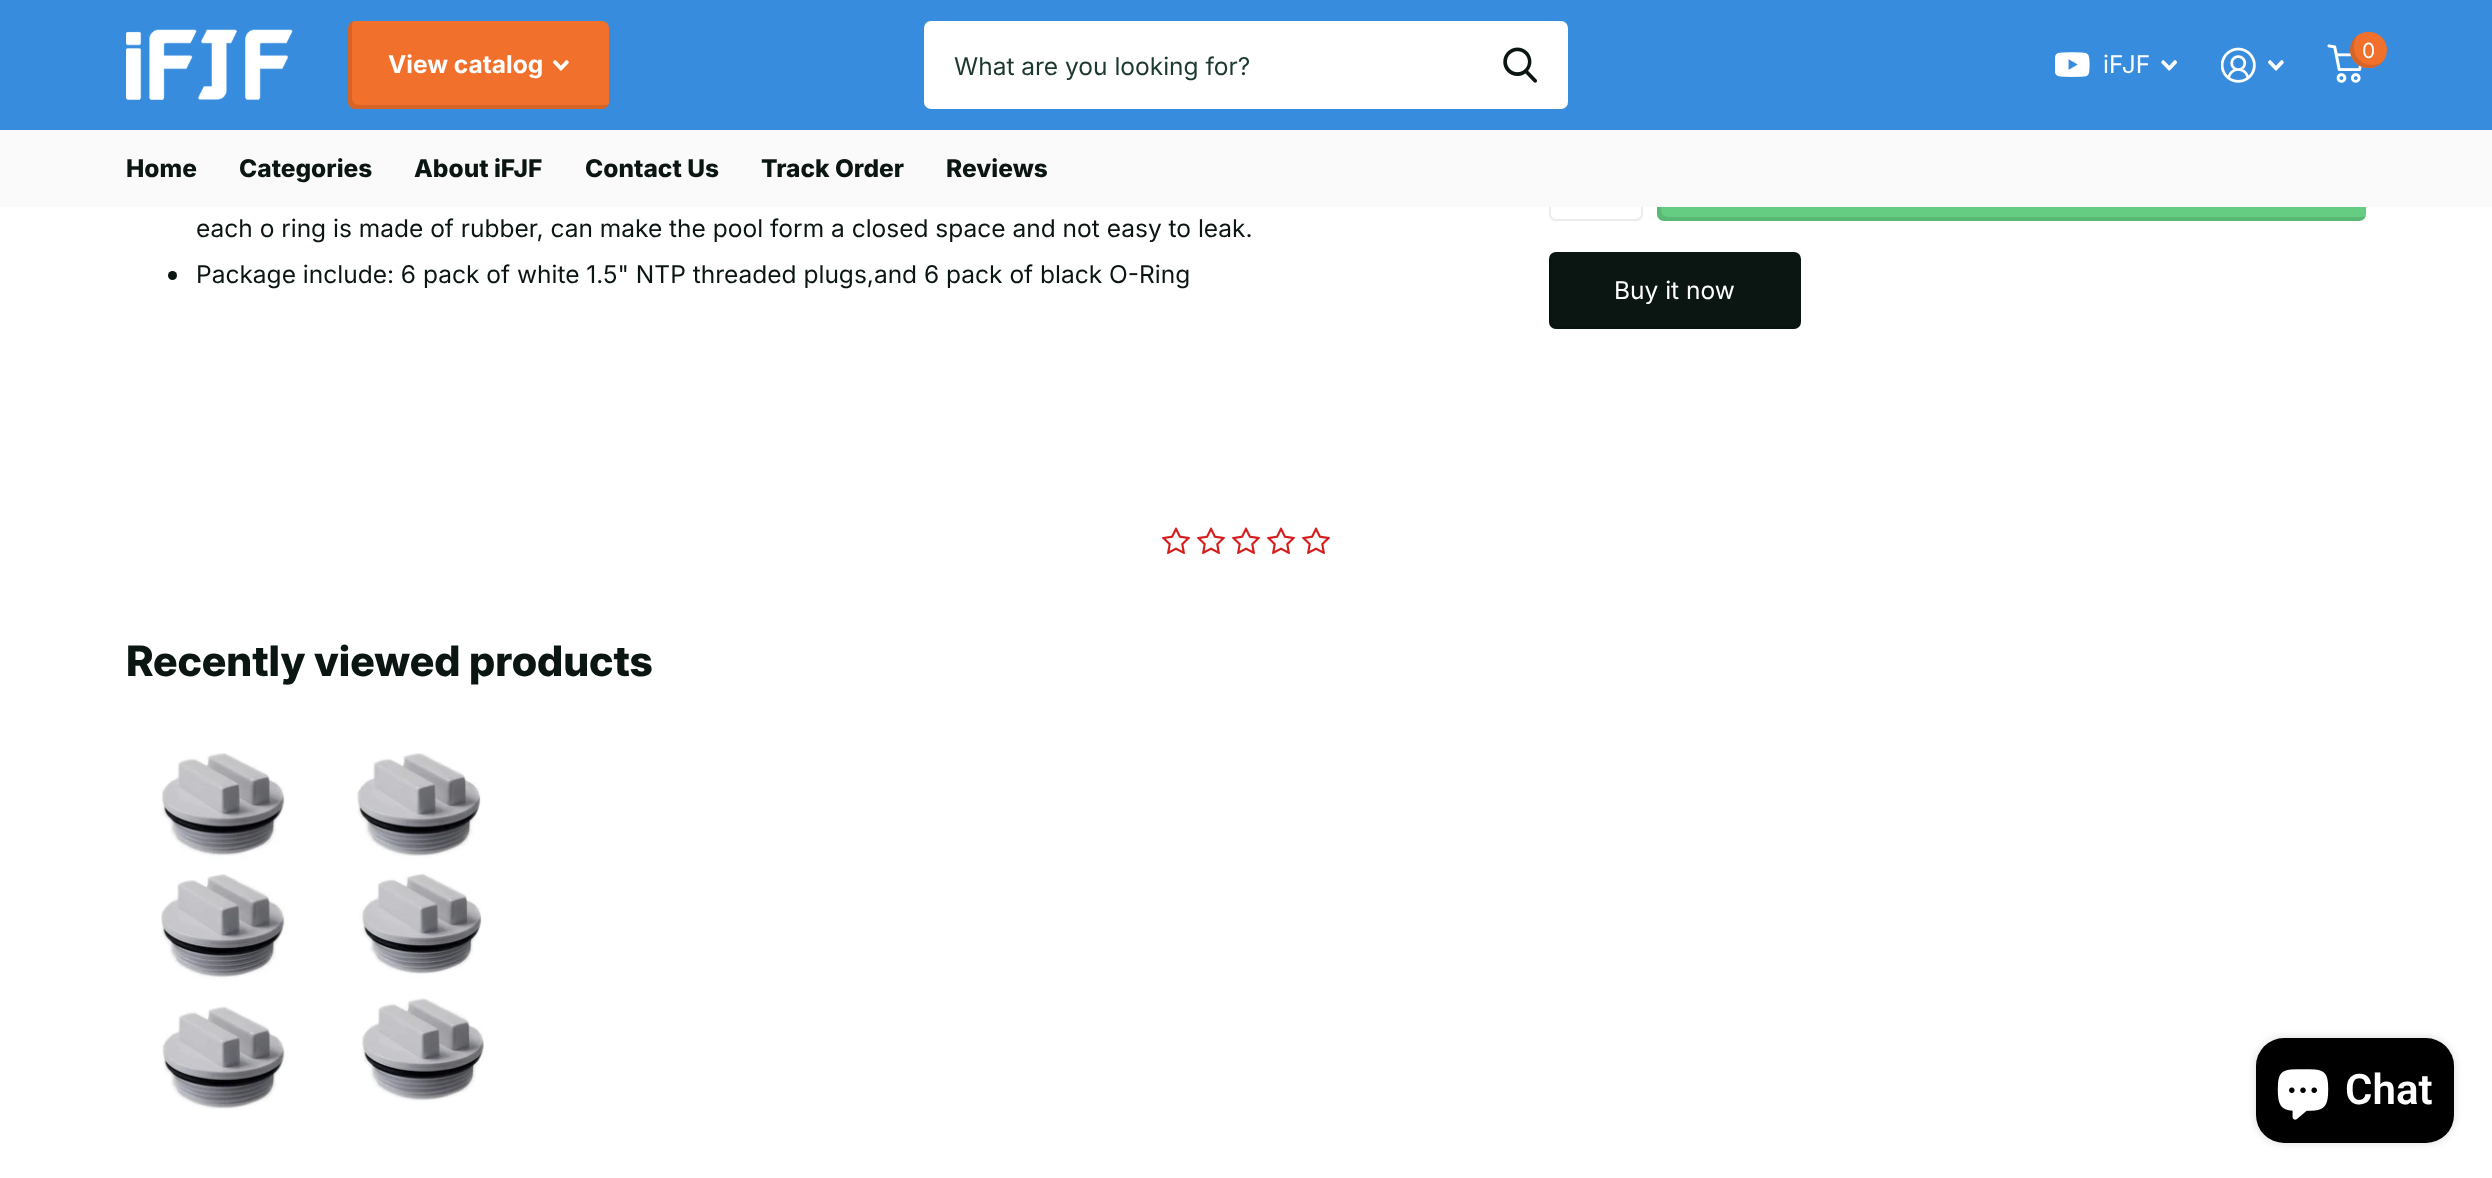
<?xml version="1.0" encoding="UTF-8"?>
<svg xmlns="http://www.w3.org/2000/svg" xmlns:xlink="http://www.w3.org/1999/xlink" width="2492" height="1178">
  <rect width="100%" height="100%" fill="#ffffff" />
  <rect width="2492" height="130" fill="#378cde" />
  <image x="126" y="29" width="167" height="71" xlink:href="image1.png" />
  <rect x="348" y="21" width="261" height="88" rx="7" fill="#f0702c" />
  <path d="M 353 21 c -3 1 -5 4 -5 7 v 74 c 0 4 3 7 7 7 h 247 c 3 0 6 -2 7 -5 l -3 1 h -247 c -4 0 -7 -3 -7 -7 v -74 z" fill="#000000" fill-opacity="0.1" />
  <image x="553" y="60" width="16" height="11" xlink:href="image2.png" />
  <rect x="924" y="21" width="644" height="88" rx="7" fill="#ffffff" />
  <image x="1503" y="47" width="34" height="36" xlink:href="image3.png" />
  <image x="2055" y="52" width="35" height="25" xlink:href="image4.png" />
  <image x="2161" y="60" width="16" height="11" xlink:href="image5.png" />
  <image x="2221" y="47" width="35" height="36" xlink:href="image6.png" />
  <image x="2268" y="60" width="16" height="11" xlink:href="image7.png" />
  <image x="2327" y="44" width="35" height="39" xlink:href="image8.png" />
  <rect x="2350" y="32" width="37" height="36" rx="18" fill="#f0702c" />
  <path d="M 2382.5 62 c -3 2 -6.5 3 -10.5 3 c -17 0 -22 -18.5 -15 -29.5 c -8.5 6.5 -9.5 19.5 -1.5 27 c 7 7.5 20 7 27 -0.5 z" fill="#000000" fill-opacity="0.1" />
  <rect x="1550" y="132" width="92" height="88" rx="6" fill="none" stroke="#ebecec" stroke-width="2" />
  <rect x="1657" y="131" width="709" height="90" rx="7" fill="#64cd82" />
  <path d="M 1662 131 c -3 1 -5 4 -5 7 v 76 c 0 4 3 7 7 7 h 695 c 3 0 6 -2 7 -5 l -4 1 h -694 c -4 0 -7 -3 -7 -7 v -75 c 0 -1 0 -3 1 -4 z" fill="#000000" fill-opacity="0.1" />
  <rect y="130" width="2492" height="77" fill="#fafafa" />
  <circle cx="172.5" cy="275.5" r="4.5" fill="#0b1613" />
  <rect x="1549" y="252" width="252" height="77" rx="7" fill="#0b1613" />
  <path d="M 1553 253 c -3 1 -4 3 -4 6 v 63 c 0 4 3 7 7 7 h 238 c 3 0 5 -2 6 -4 c -1 1 -2 1 -3 1 h -238 c -4 0 -7 -4 -7 -8 v -62 z" fill="#000000" fill-opacity="0.1" />
  <image x="1162" y="527" width="28" height="28" xlink:href="image9.png" />
  <image x="1197" y="527" width="28" height="28" xlink:href="image9.png" />
  <image x="1232" y="527" width="28" height="28" xlink:href="image9.png" />
  <image x="1267" y="527" width="28" height="28" xlink:href="image9.png" />
  <image x="1302" y="527" width="28" height="28" xlink:href="image9.png" />
  <image x="161" y="753" width="323" height="357" xlink:href="image10.png" />
  <rect x="2256" y="1038" width="198" height="105" rx="28" fill="#000000" fill-opacity="0.15" filter="blur(4.5px)" />
  <rect x="2256" y="1038" width="198" height="105" rx="28" fill="#000000" />
  <image x="2277" y="1069" width="52" height="51" xlink:href="image11.png" />
  <text x="388" y="73" style="font-family: Inter; font-size: 24.5px; font-weight: bold; fill: #ffffff">View catalog</text>
  <text x="954" y="75" style="font-family: Inter; font-size: 24.5px; fill: #1c3830">What are you looking for?</text>
  <text x="2103" y="73" style="font-family: Inter; font-size: 24.5px; fill: #ffffff">iFJF</text>
  <text x="2362" y="58" style="font-family: Inter; font-size: 21px; fill: #ffffff">0</text>
  <text x="126" y="177" style="font-family: 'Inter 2'; font-size: 24.5px; font-weight: 800; fill: #0b1613">Home</text>
  <text x="239" y="177" style="font-family: 'Inter 2'; font-size: 24.5px; font-weight: 800; fill: #0b1613">Categories</text>
  <text x="414" y="177" style="font-family: 'Inter 2'; font-size: 24.5px; font-weight: 800; fill: #0b1613">About iFJF</text>
  <text x="585" y="177" style="font-family: 'Inter 2'; font-size: 24.5px; font-weight: 800; fill: #0b1613">Contact Us</text>
  <text x="761" y="177" style="font-family: 'Inter 2'; font-size: 24.5px; font-weight: 800; fill: #0b1613">Track Order</text>
  <text x="946" y="177" style="font-family: 'Inter 2'; font-size: 24.5px; font-weight: 800; fill: #0b1613">Reviews</text>
  <text x="196" y="237" style="font-family: Inter; font-size: 24.5px; fill: #0b1613">each o ring is made of rubber, can make the pool form a closed space and not easy to leak.</text>
  <text x="196" y="283" style="font-family: Inter; font-size: 24.5px; fill: #0b1613">Package include: 6 pack of white 1.5" NTP threaded plugs,and 6 pack of black O-Ring</text>
  <text x="1614" y="299" style="font-family: Inter; font-size: 24.5px; fill: #ffffff">Buy it now</text>
  <text x="126" y="676" style="font-family: Inter; font-size: 42px; font-weight: 800; fill: #0b1613">Recently viewed products</text>
  <text x="2345" y="1104" style="font-family: Roboto; font-size: 42px; font-weight: 600; fill: #ffffff">Chat</text>
</svg>
